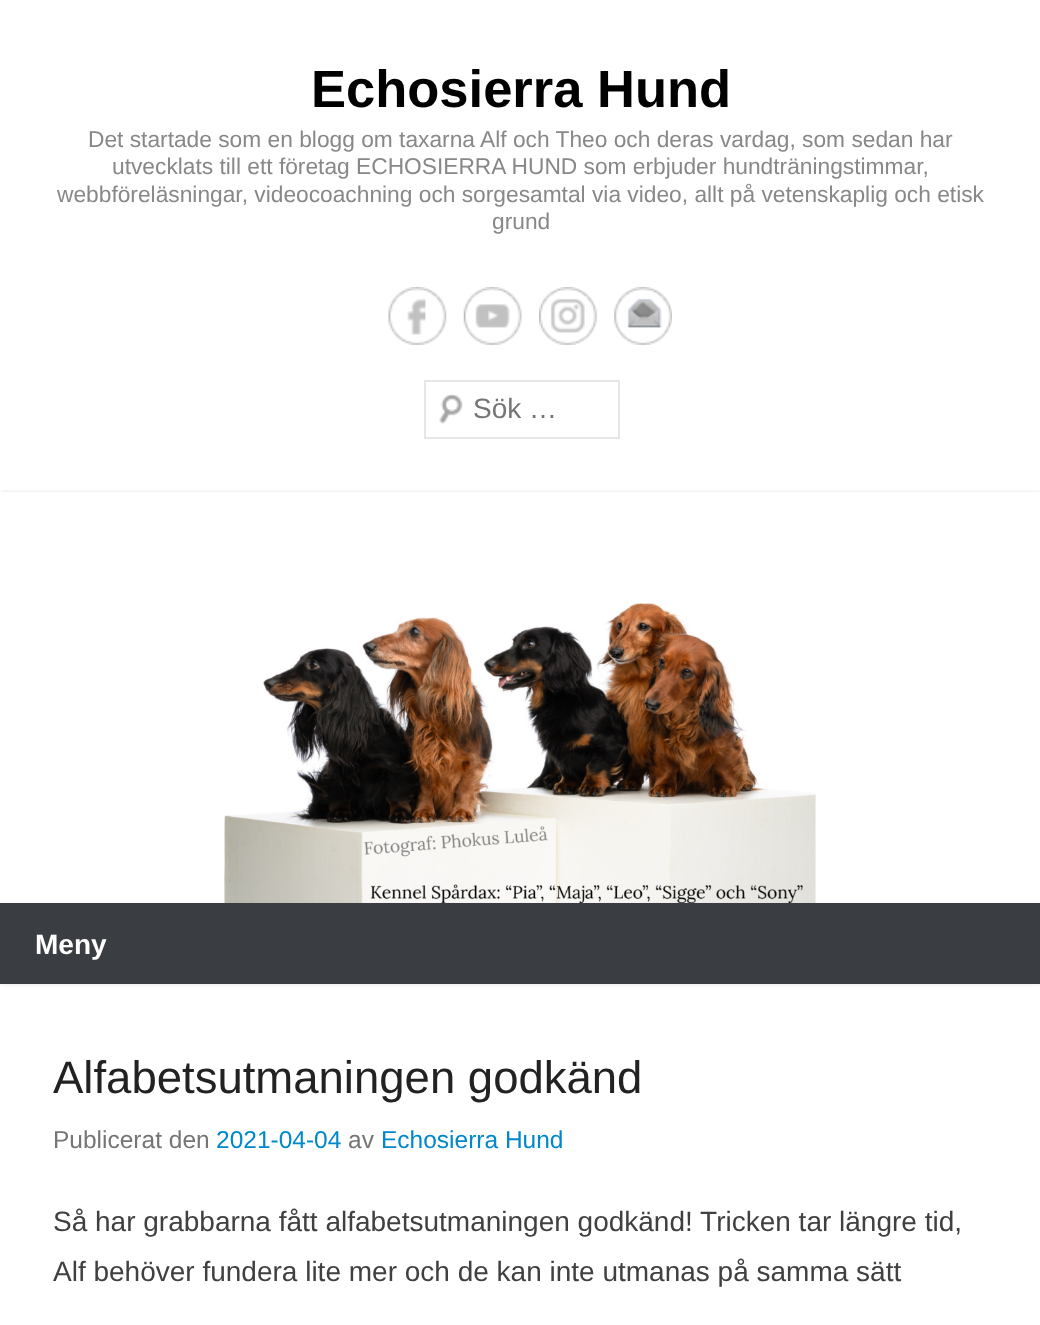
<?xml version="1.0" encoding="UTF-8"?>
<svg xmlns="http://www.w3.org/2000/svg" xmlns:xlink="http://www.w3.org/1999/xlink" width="1040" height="1325">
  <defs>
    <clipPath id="clip1"><rect x="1" y="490" width="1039" height="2" /></clipPath>
    <clipPath id="clip2"><path d="M 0 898 h 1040 v 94 h -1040 z m 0 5 h 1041 v 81 h -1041 z" clip-rule="evenodd" /></clipPath>
  </defs>
  <rect width="100%" height="100%" fill="#ffffff" />
  <image x="388" y="287" width="59" height="58" xlink:href="image1.png" />
  <image x="463" y="287" width="59" height="58" xlink:href="image2.png" />
  <image x="539" y="287" width="58" height="58" xlink:href="image3.png" />
  <image x="614" y="287" width="58" height="58" xlink:href="image4.png" />
  <image x="439" y="394" width="24" height="30" xlink:href="image5.png" />
  <rect x="425" y="381" width="194" height="57" fill="none" stroke="#e6e6e6" stroke-width="2" />
  <g clip-path="url(#clip1)">
    <rect y="494" width="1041" height="411" fill="#000000" fill-opacity="0.2" filter="blur(3.5px)" />
  </g>
  <image x="224" y="603" width="592" height="300" xlink:href="image6.png" />
  <rect y="903" width="1040" height="81" fill="#3a3d41" />
  <g clip-path="url(#clip2)">
    <rect y="905" width="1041" height="80" fill="#404040" fill-opacity="0.1" filter="blur(2px)" />
  </g>
  <text x="311" y="107" style="font-family: Liberation Sans; font-size: 52.5px; font-weight: bold; fill: #000000">Echosierra Hund</text>
  <text x="88" y="147" style="font-family: Liberation Sans; font-size: 22.75px; fill: #888888">Det startade som en blogg om taxarna Alf och Theo och deras vardag, som sedan har</text>
  <text x="112" y="174" style="font-family: Liberation Sans; font-size: 22.75px; fill: #888888">utvecklats till ett företag ECHOSIERRA HUND som erbjuder hundträningstimmar,</text>
  <text x="57" y="202" style="font-family: Liberation Sans; font-size: 22.75px; fill: #888888">webbföreläsningar, videocoachning och sorgesamtal via video, allt på vetenskaplig och etisk</text>
  <text x="492" y="229" style="font-family: Liberation Sans; font-size: 22.75px; fill: #888888">grund</text>
  <text x="473" y="418" style="font-family: Liberation Sans; font-size: 28px; fill: #757575">Sök …</text>
  <text x="35" y="954" style="font-family: Liberation Sans; font-size: 28px; font-weight: bold; fill: #ffffff">Meny</text>
  <text x="53" y="1093" style="font-family: Liberation Sans; font-size: 45.5px; fill: #222222">Alfabetsutmaningen godkänd</text>
  <text x="53" y="1148" style="font-family: Liberation Sans; font-size: 24.5px; fill: #757575">Publicerat den</text>
  <text x="216" y="1148" style="font-family: Liberation Sans; font-size: 24.5px; fill: #0088cc">2021-04-04</text>
  <text x="348" y="1148" style="font-family: Liberation Sans; font-size: 24.5px; fill: #757575">av</text>
  <text x="381" y="1148" style="font-family: Liberation Sans; font-size: 24.5px; fill: #0088cc">Echosierra Hund</text>
  <text x="53" y="1231" style="font-family: Liberation Sans; font-size: 28px; fill: #404040">Så har grabbarna fått alfabetsutmaningen godkänd! Tricken tar längre tid,</text>
  <text x="53" y="1281" style="font-family: Liberation Sans; font-size: 28px; fill: #404040">Alf behöver fundera lite mer och de kan inte utmanas på samma sätt</text>
</svg>
